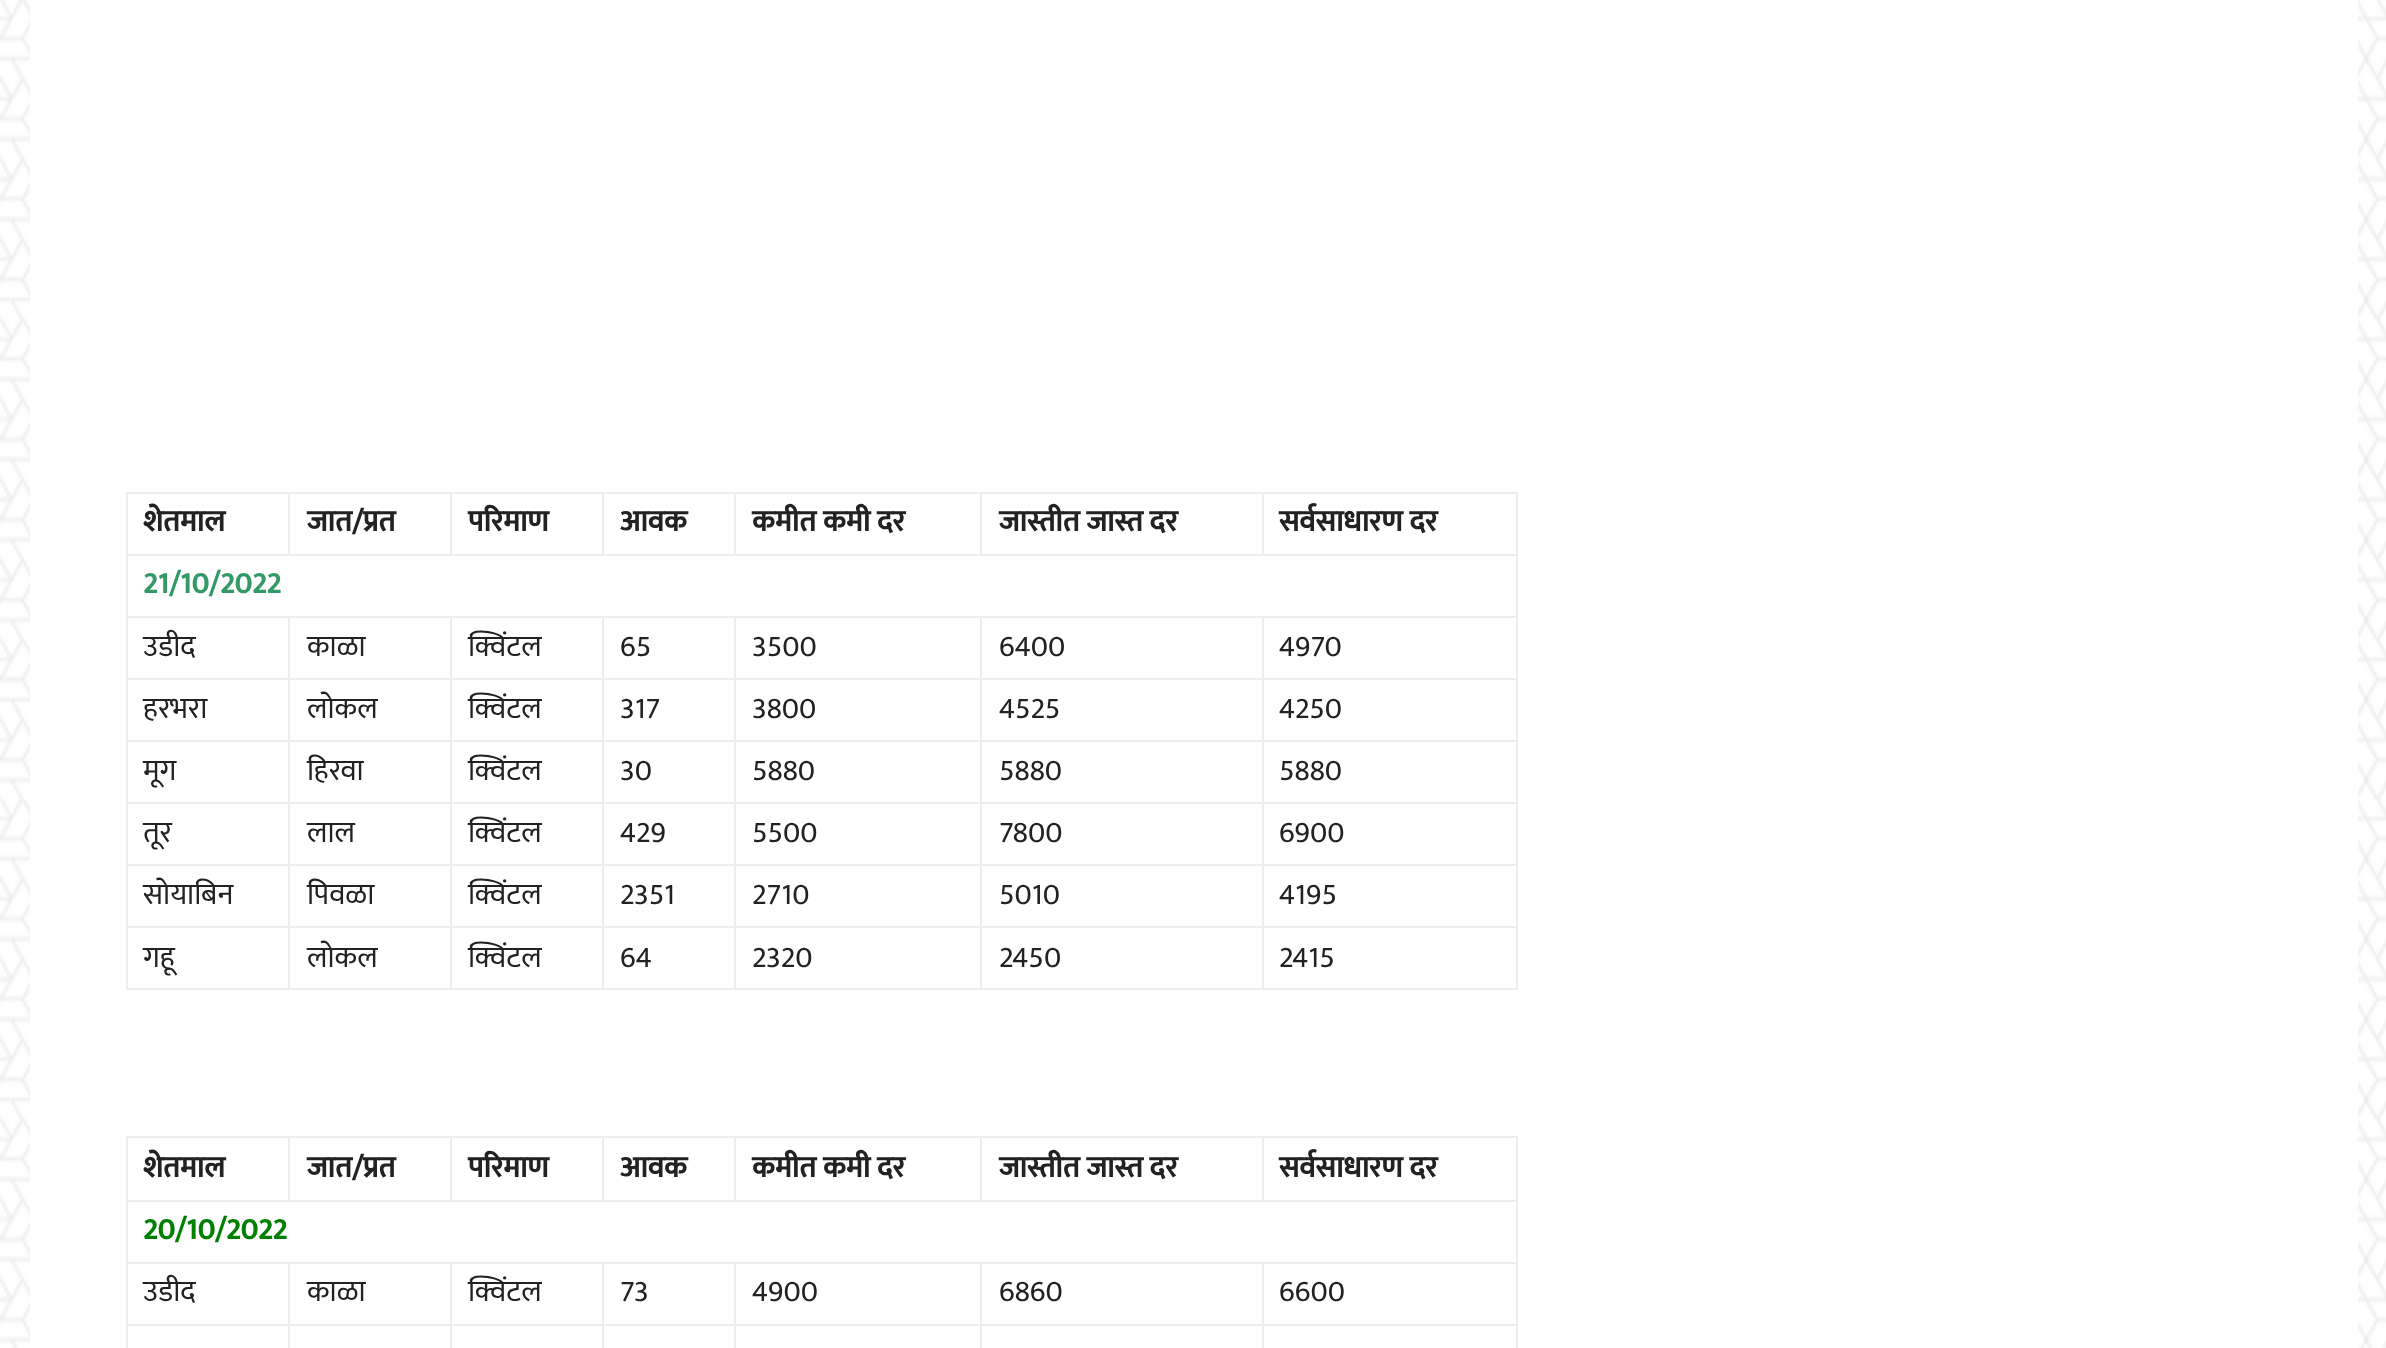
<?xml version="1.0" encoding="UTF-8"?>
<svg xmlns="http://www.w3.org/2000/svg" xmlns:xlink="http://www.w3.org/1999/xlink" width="2386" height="1348">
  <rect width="100%" height="100%" fill="#ffffff" />
  <image x="0" y="0" width="2386" height="1348" xlink:href="image1.png" />
  <rect x="30" width="2328" height="1348" fill="#ffffff" />
  <rect x="1262" y="492" width="256" height="2" fill="#ededed" />
  <rect x="126" y="554" width="1392" height="2" fill="#ededed" />
  <rect x="1262" y="492" width="2" height="64" fill="#ededed" />
  <rect x="980" y="492" width="284" height="2" fill="#ededed" />
  <rect x="980" y="492" width="2" height="64" fill="#ededed" />
  <rect x="734" y="492" width="248" height="2" fill="#ededed" />
  <rect x="734" y="492" width="2" height="64" fill="#ededed" />
  <rect x="602" y="492" width="134" height="2" fill="#ededed" />
  <rect x="602" y="492" width="2" height="64" fill="#ededed" />
  <rect x="450" y="492" width="154" height="2" fill="#ededed" />
  <rect x="450" y="492" width="2" height="64" fill="#ededed" />
  <rect x="288" y="492" width="164" height="2" fill="#ededed" />
  <rect x="288" y="492" width="2" height="64" fill="#ededed" />
  <rect x="126" y="492" width="164" height="2" fill="#ededed" />
  <rect x="1262" y="616" width="256" height="2" fill="#ededed" />
  <rect x="1262" y="678" width="256" height="2" fill="#ededed" />
  <rect x="1262" y="740" width="256" height="2" fill="#ededed" />
  <rect x="1262" y="802" width="256" height="2" fill="#ededed" />
  <rect x="1262" y="864" width="256" height="2" fill="#ededed" />
  <rect x="1262" y="926" width="256" height="2" fill="#ededed" />
  <rect x="1516" y="926" width="2" height="64" fill="#ededed" />
  <rect x="1262" y="988" width="256" height="2" fill="#ededed" />
  <rect x="1262" y="926" width="2" height="64" fill="#ededed" />
  <rect x="980" y="926" width="284" height="2" fill="#ededed" />
  <rect x="1262" y="864" width="2" height="64" fill="#ededed" />
  <rect x="980" y="864" width="284" height="2" fill="#ededed" />
  <rect x="1262" y="802" width="2" height="64" fill="#ededed" />
  <rect x="980" y="802" width="284" height="2" fill="#ededed" />
  <rect x="1262" y="740" width="2" height="64" fill="#ededed" />
  <rect x="980" y="740" width="284" height="2" fill="#ededed" />
  <rect x="1262" y="678" width="2" height="64" fill="#ededed" />
  <rect x="980" y="678" width="284" height="2" fill="#ededed" />
  <rect x="1262" y="616" width="2" height="64" fill="#ededed" />
  <rect x="980" y="616" width="284" height="2" fill="#ededed" />
  <rect x="980" y="988" width="284" height="2" fill="#ededed" />
  <rect x="980" y="926" width="2" height="64" fill="#ededed" />
  <rect x="734" y="926" width="248" height="2" fill="#ededed" />
  <rect x="980" y="864" width="2" height="64" fill="#ededed" />
  <rect x="734" y="864" width="248" height="2" fill="#ededed" />
  <rect x="980" y="802" width="2" height="64" fill="#ededed" />
  <rect x="734" y="802" width="248" height="2" fill="#ededed" />
  <rect x="980" y="740" width="2" height="64" fill="#ededed" />
  <rect x="734" y="740" width="248" height="2" fill="#ededed" />
  <rect x="980" y="678" width="2" height="64" fill="#ededed" />
  <rect x="734" y="678" width="248" height="2" fill="#ededed" />
  <rect x="980" y="616" width="2" height="64" fill="#ededed" />
  <rect x="734" y="616" width="248" height="2" fill="#ededed" />
  <rect x="734" y="988" width="248" height="2" fill="#ededed" />
  <rect x="734" y="926" width="2" height="64" fill="#ededed" />
  <rect x="602" y="926" width="134" height="2" fill="#ededed" />
  <rect x="734" y="864" width="2" height="64" fill="#ededed" />
  <rect x="602" y="864" width="134" height="2" fill="#ededed" />
  <rect x="734" y="802" width="2" height="64" fill="#ededed" />
  <rect x="602" y="802" width="134" height="2" fill="#ededed" />
  <rect x="734" y="740" width="2" height="64" fill="#ededed" />
  <rect x="602" y="740" width="134" height="2" fill="#ededed" />
  <rect x="734" y="678" width="2" height="64" fill="#ededed" />
  <rect x="602" y="678" width="134" height="2" fill="#ededed" />
  <rect x="734" y="616" width="2" height="64" fill="#ededed" />
  <rect x="602" y="616" width="134" height="2" fill="#ededed" />
  <rect x="602" y="988" width="134" height="2" fill="#ededed" />
  <rect x="602" y="926" width="2" height="64" fill="#ededed" />
  <rect x="450" y="926" width="154" height="2" fill="#ededed" />
  <rect x="602" y="864" width="2" height="64" fill="#ededed" />
  <rect x="450" y="864" width="154" height="2" fill="#ededed" />
  <rect x="602" y="802" width="2" height="64" fill="#ededed" />
  <rect x="450" y="802" width="154" height="2" fill="#ededed" />
  <rect x="602" y="740" width="2" height="64" fill="#ededed" />
  <rect x="450" y="740" width="154" height="2" fill="#ededed" />
  <rect x="602" y="678" width="2" height="64" fill="#ededed" />
  <rect x="450" y="678" width="154" height="2" fill="#ededed" />
  <rect x="602" y="616" width="2" height="64" fill="#ededed" />
  <rect x="450" y="616" width="154" height="2" fill="#ededed" />
  <rect x="450" y="988" width="154" height="2" fill="#ededed" />
  <rect x="450" y="926" width="2" height="64" fill="#ededed" />
  <rect x="288" y="926" width="164" height="2" fill="#ededed" />
  <rect x="450" y="864" width="2" height="64" fill="#ededed" />
  <rect x="288" y="864" width="164" height="2" fill="#ededed" />
  <rect x="450" y="802" width="2" height="64" fill="#ededed" />
  <rect x="288" y="802" width="164" height="2" fill="#ededed" />
  <rect x="450" y="740" width="2" height="64" fill="#ededed" />
  <rect x="288" y="740" width="164" height="2" fill="#ededed" />
  <rect x="450" y="678" width="2" height="64" fill="#ededed" />
  <rect x="288" y="678" width="164" height="2" fill="#ededed" />
  <rect x="450" y="616" width="2" height="64" fill="#ededed" />
  <rect x="288" y="616" width="164" height="2" fill="#ededed" />
  <rect x="288" y="988" width="164" height="2" fill="#ededed" />
  <rect x="288" y="926" width="2" height="64" fill="#ededed" />
  <rect x="126" y="926" width="164" height="2" fill="#ededed" />
  <rect x="288" y="864" width="2" height="64" fill="#ededed" />
  <rect x="126" y="864" width="164" height="2" fill="#ededed" />
  <rect x="288" y="802" width="2" height="64" fill="#ededed" />
  <rect x="126" y="802" width="164" height="2" fill="#ededed" />
  <rect x="288" y="740" width="2" height="64" fill="#ededed" />
  <rect x="126" y="740" width="164" height="2" fill="#ededed" />
  <rect x="288" y="678" width="2" height="64" fill="#ededed" />
  <rect x="126" y="678" width="164" height="2" fill="#ededed" />
  <rect x="288" y="616" width="2" height="64" fill="#ededed" />
  <rect x="126" y="616" width="164" height="2" fill="#ededed" />
  <rect x="126" y="988" width="164" height="2" fill="#ededed" />
  <rect x="126" y="926" width="2" height="64" fill="#ededed" />
  <rect x="126" y="864" width="2" height="64" fill="#ededed" />
  <rect x="126" y="802" width="2" height="64" fill="#ededed" />
  <rect x="126" y="740" width="2" height="64" fill="#ededed" />
  <rect x="126" y="678" width="2" height="64" fill="#ededed" />
  <rect x="126" y="616" width="2" height="64" fill="#ededed" />
  <rect x="126" y="554" width="2" height="64" fill="#ededed" />
  <rect x="126" y="492" width="2" height="64" fill="#ededed" />
  <rect x="1516" y="864" width="2" height="64" fill="#ededed" />
  <rect x="1516" y="802" width="2" height="64" fill="#ededed" />
  <rect x="1516" y="740" width="2" height="64" fill="#ededed" />
  <rect x="1516" y="678" width="2" height="64" fill="#ededed" />
  <rect x="1516" y="616" width="2" height="64" fill="#ededed" />
  <rect x="1516" y="554" width="2" height="64" fill="#ededed" />
  <rect x="1516" y="492" width="2" height="64" fill="#ededed" />
  <rect x="1262" y="1136" width="256" height="2" fill="#ededed" />
  <rect x="126" y="1200" width="1392" height="2" fill="#ededed" />
  <rect x="1262" y="1136" width="2" height="66" fill="#ededed" />
  <rect x="980" y="1136" width="284" height="2" fill="#ededed" />
  <rect x="980" y="1136" width="2" height="66" fill="#ededed" />
  <rect x="734" y="1136" width="248" height="2" fill="#ededed" />
  <rect x="734" y="1136" width="2" height="66" fill="#ededed" />
  <rect x="602" y="1136" width="134" height="2" fill="#ededed" />
  <rect x="602" y="1136" width="2" height="66" fill="#ededed" />
  <rect x="450" y="1136" width="154" height="2" fill="#ededed" />
  <rect x="450" y="1136" width="2" height="66" fill="#ededed" />
  <rect x="288" y="1136" width="164" height="2" fill="#ededed" />
  <rect x="288" y="1136" width="2" height="66" fill="#ededed" />
  <rect x="126" y="1136" width="164" height="2" fill="#ededed" />
  <rect x="1262" y="1262" width="256" height="2" fill="#ededed" />
  <rect x="1262" y="1324" width="256" height="2" fill="#ededed" />
  <rect x="1262" y="1324" width="2" height="24" fill="#ededed" />
  <rect x="980" y="1324" width="284" height="2" fill="#ededed" />
  <rect x="1262" y="1262" width="2" height="64" fill="#ededed" />
  <rect x="980" y="1262" width="284" height="2" fill="#ededed" />
  <rect x="980" y="1324" width="2" height="24" fill="#ededed" />
  <rect x="734" y="1324" width="248" height="2" fill="#ededed" />
  <rect x="980" y="1262" width="2" height="64" fill="#ededed" />
  <rect x="734" y="1262" width="248" height="2" fill="#ededed" />
  <rect x="734" y="1324" width="2" height="24" fill="#ededed" />
  <rect x="602" y="1324" width="134" height="2" fill="#ededed" />
  <rect x="734" y="1262" width="2" height="64" fill="#ededed" />
  <rect x="602" y="1262" width="134" height="2" fill="#ededed" />
  <rect x="602" y="1324" width="2" height="24" fill="#ededed" />
  <rect x="450" y="1324" width="154" height="2" fill="#ededed" />
  <rect x="602" y="1262" width="2" height="64" fill="#ededed" />
  <rect x="450" y="1262" width="154" height="2" fill="#ededed" />
  <rect x="450" y="1324" width="2" height="24" fill="#ededed" />
  <rect x="288" y="1324" width="164" height="2" fill="#ededed" />
  <rect x="450" y="1262" width="2" height="64" fill="#ededed" />
  <rect x="288" y="1262" width="164" height="2" fill="#ededed" />
  <rect x="288" y="1324" width="2" height="24" fill="#ededed" />
  <rect x="126" y="1324" width="164" height="2" fill="#ededed" />
  <rect x="288" y="1262" width="2" height="64" fill="#ededed" />
  <rect x="126" y="1262" width="164" height="2" fill="#ededed" />
  <rect x="126" y="1324" width="2" height="24" fill="#ededed" />
  <rect x="126" y="1262" width="2" height="64" fill="#ededed" />
  <rect x="126" y="1200" width="2" height="64" fill="#ededed" />
  <rect x="126" y="1136" width="2" height="66" fill="#ededed" />
  <rect x="1516" y="1324" width="2" height="24" fill="#ededed" />
  <rect x="1516" y="1262" width="2" height="64" fill="#ededed" />
  <rect x="1516" y="1200" width="2" height="64" fill="#ededed" />
  <rect x="1516" y="1136" width="2" height="66" fill="#ededed" />
  <text x="143" y="531" style="font-family: Mukta; font-size: 30px; font-weight: bold; fill: #222222">शेतमाल</text>
  <text x="307" y="531" style="font-family: Mukta; font-size: 30px; font-weight: bold; fill: #222222">जात/प्रत</text>
  <text x="468" y="531" style="font-family: Mukta; font-size: 30px; font-weight: bold; fill: #222222">परिमाण</text>
  <text x="620" y="531" style="font-family: Mukta; font-size: 30px; font-weight: bold; fill: #222222">आवक</text>
  <text x="752" y="531" style="font-family: Mukta; font-size: 30px; font-weight: bold; fill: #222222">कमीत कमी दर</text>
  <text x="999" y="531" style="font-family: Mukta; font-size: 30px; font-weight: bold; fill: #222222">जास्तीत जास्त दर</text>
  <text x="1279" y="531" style="font-family: Mukta; font-size: 30px; font-weight: bold; fill: #222222">सर्वसाधारण दर</text>
  <text x="143" y="593" style="font-family: Mukta; font-size: 30px; font-weight: bold; fill: #339966">21/10/2022</text>
  <text x="143" y="656" style="font-family: Mukta; font-size: 30px; fill: #222222">उडीद</text>
  <text x="307" y="656" style="font-family: Mukta; font-size: 30px; fill: #222222">काळा</text>
  <text x="468" y="656" style="font-family: Mukta; font-size: 30px; fill: #222222">क्विंटल</text>
  <text x="620" y="656" style="font-family: Mukta; font-size: 30px; fill: #222222">65</text>
  <text x="752" y="656" style="font-family: Mukta; font-size: 30px; fill: #222222">3500</text>
  <text x="999" y="656" style="font-family: Mukta; font-size: 30px; fill: #222222">6400</text>
  <text x="1279" y="656" style="font-family: Mukta; font-size: 30px; fill: #222222">4970</text>
  <text x="143" y="718" style="font-family: Mukta; font-size: 30px; fill: #222222">हरभरा</text>
  <text x="307" y="718" style="font-family: Mukta; font-size: 30px; fill: #222222">लोकल</text>
  <text x="468" y="718" style="font-family: Mukta; font-size: 30px; fill: #222222">क्विंटल</text>
  <text x="620" y="718" style="font-family: Mukta; font-size: 30px; fill: #222222">317</text>
  <text x="752" y="718" style="font-family: Mukta; font-size: 30px; fill: #222222">3800</text>
  <text x="999" y="718" style="font-family: Mukta; font-size: 30px; fill: #222222">4525</text>
  <text x="1279" y="718" style="font-family: Mukta; font-size: 30px; fill: #222222">4250</text>
  <text x="143" y="780" style="font-family: Mukta; font-size: 30px; fill: #222222">मूग</text>
  <text x="307" y="780" style="font-family: Mukta; font-size: 30px; fill: #222222">हिरवा</text>
  <text x="468" y="780" style="font-family: Mukta; font-size: 30px; fill: #222222">क्विंटल</text>
  <text x="620" y="780" style="font-family: Mukta; font-size: 30px; fill: #222222">30</text>
  <text x="752" y="780" style="font-family: Mukta; font-size: 30px; fill: #222222">5880</text>
  <text x="999" y="780" style="font-family: Mukta; font-size: 30px; fill: #222222">5880</text>
  <text x="1279" y="780" style="font-family: Mukta; font-size: 30px; fill: #222222">5880</text>
  <text x="143" y="842" style="font-family: Mukta; font-size: 30px; fill: #222222">तूर</text>
  <text x="307" y="842" style="font-family: Mukta; font-size: 30px; fill: #222222">लाल</text>
  <text x="468" y="842" style="font-family: Mukta; font-size: 30px; fill: #222222">क्विंटल</text>
  <text x="620" y="842" style="font-family: Mukta; font-size: 30px; fill: #222222">429</text>
  <text x="752" y="842" style="font-family: Mukta; font-size: 30px; fill: #222222">5500</text>
  <text x="999" y="842" style="font-family: Mukta; font-size: 30px; fill: #222222">7800</text>
  <text x="1279" y="842" style="font-family: Mukta; font-size: 30px; fill: #222222">6900</text>
  <text x="143" y="904" style="font-family: Mukta; font-size: 30px; fill: #222222">सोयाबिन</text>
  <text x="307" y="904" style="font-family: Mukta; font-size: 30px; fill: #222222">पिवळा</text>
  <text x="468" y="904" style="font-family: Mukta; font-size: 30px; fill: #222222">क्विंटल</text>
  <text x="620" y="904" style="font-family: Mukta; font-size: 30px; fill: #222222">2351</text>
  <text x="752" y="904" style="font-family: Mukta; font-size: 30px; fill: #222222">2710</text>
  <text x="999" y="904" style="font-family: Mukta; font-size: 30px; fill: #222222">5010</text>
  <text x="1279" y="904" style="font-family: Mukta; font-size: 30px; fill: #222222">4195</text>
  <text x="143" y="967" style="font-family: Mukta; font-size: 30px; fill: #222222">गहू</text>
  <text x="307" y="967" style="font-family: Mukta; font-size: 30px; fill: #222222">लोकल</text>
  <text x="468" y="967" style="font-family: Mukta; font-size: 30px; fill: #222222">क्विंटल</text>
  <text x="620" y="967" style="font-family: Mukta; font-size: 30px; fill: #222222">64</text>
  <text x="752" y="967" style="font-family: Mukta; font-size: 30px; fill: #222222">2320</text>
  <text x="999" y="967" style="font-family: Mukta; font-size: 30px; fill: #222222">2450</text>
  <text x="1279" y="967" style="font-family: Mukta; font-size: 30px; fill: #222222">2415</text>
  <text x="143" y="1177" style="font-family: Mukta; font-size: 30px; font-weight: bold; fill: #222222">शेतमाल</text>
  <text x="307" y="1177" style="font-family: Mukta; font-size: 30px; font-weight: bold; fill: #222222">जात/प्रत</text>
  <text x="468" y="1177" style="font-family: Mukta; font-size: 30px; font-weight: bold; fill: #222222">परिमाण</text>
  <text x="620" y="1177" style="font-family: Mukta; font-size: 30px; font-weight: bold; fill: #222222">आवक</text>
  <text x="752" y="1177" style="font-family: Mukta; font-size: 30px; font-weight: bold; fill: #222222">कमीत कमी दर</text>
  <text x="999" y="1177" style="font-family: Mukta; font-size: 30px; font-weight: bold; fill: #222222">जास्तीत जास्त दर</text>
  <text x="1279" y="1177" style="font-family: Mukta; font-size: 30px; font-weight: bold; fill: #222222">सर्वसाधारण दर</text>
  <text x="143" y="1239" style="font-family: Mukta; font-size: 30px; font-weight: bold; fill: #008000">20/10/2022</text>
  <text x="143" y="1301" style="font-family: Mukta; font-size: 30px; fill: #222222">उडीद</text>
  <text x="307" y="1301" style="font-family: Mukta; font-size: 30px; fill: #222222">काळा</text>
  <text x="468" y="1301" style="font-family: Mukta; font-size: 30px; fill: #222222">क्विंटल</text>
  <text x="620" y="1301" style="font-family: Mukta; font-size: 30px; fill: #222222">73</text>
  <text x="752" y="1301" style="font-family: Mukta; font-size: 30px; fill: #222222">4900</text>
  <text x="999" y="1301" style="font-family: Mukta; font-size: 30px; fill: #222222">6860</text>
  <text x="1279" y="1301" style="font-family: Mukta; font-size: 30px; fill: #222222">6600</text>
</svg>
